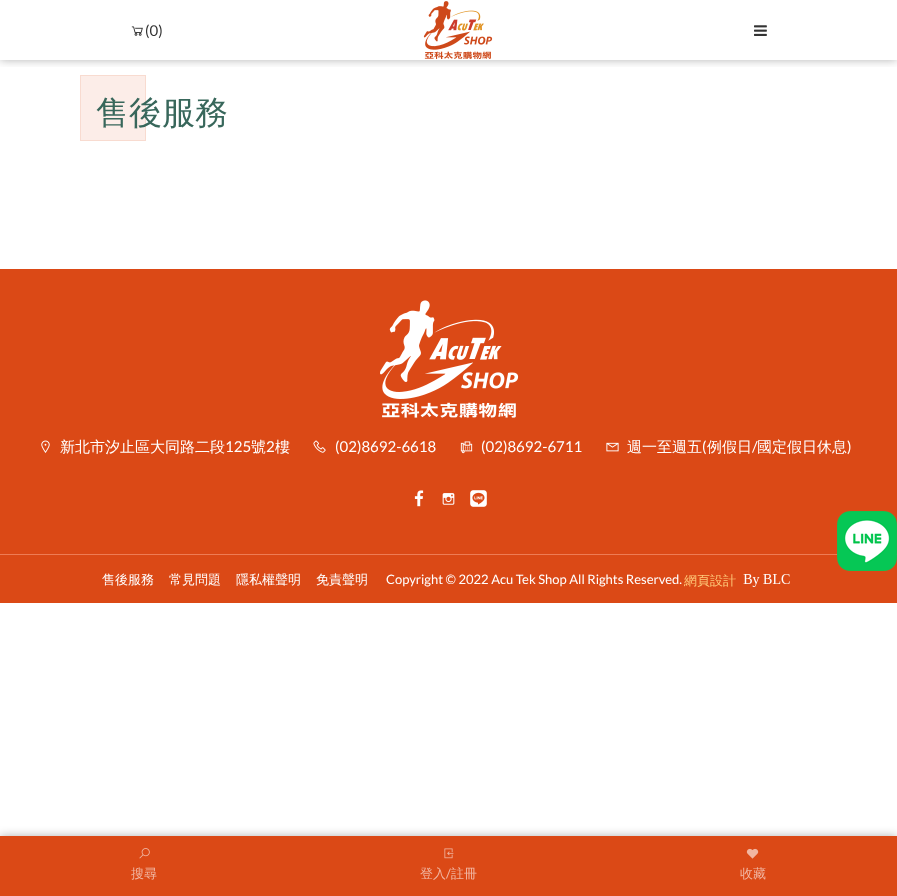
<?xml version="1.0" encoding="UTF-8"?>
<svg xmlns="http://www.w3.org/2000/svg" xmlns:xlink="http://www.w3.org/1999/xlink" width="897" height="896">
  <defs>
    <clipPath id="clip1"><rect x="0" y="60" width="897" height="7" /></clipPath>
  </defs>
  <rect width="100%" height="100%" fill="#ffffff" />
  <rect x="80.5" y="75.5" width="65" height="65" fill="#fcede8" stroke="#f8dbd0" />
  <g clip-path="url(#clip1)">
    <rect width="897" height="60" fill="#000000" fill-opacity="0.3" filter="blur(5px)" />
  </g>
  <image x="131" y="26" width="12" height="10" xlink:href="image1.png" />
  <image x="423" y="1" width="70" height="58" xlink:href="image2.png" />
  <image x="754" y="25" width="13" height="11" xlink:href="image3.png" />
  <rect y="269" width="897" height="285" fill="#db4916" />
  <image x="380" y="300" width="139" height="118" xlink:href="image4.png" />
  <image x="41" y="440" width="9" height="13" xlink:href="image5.png" />
  <image x="313" y="440" width="13" height="13" xlink:href="image6.png" />
  <image x="460" y="441" width="13" height="13" xlink:href="image7.png" />
  <image x="606" y="442" width="13" height="10" xlink:href="image8.png" />
  <image x="414" y="490" width="10" height="17" xlink:href="image9.png" />
  <image x="442" y="493" width="13" height="12" xlink:href="image10.png" />
  <image x="470" y="490" width="17" height="17" xlink:href="image11.png" />
  <rect y="555" width="897" height="48" fill="#db4916" />
  <rect y="554" width="897" height="1" fill="#ee7c55" />
  <image x="743" y="574" width="47" height="13" xlink:href="image12.png" />
  <rect y="836" width="897" height="60" fill="#000000" fill-opacity="0.3" filter="blur(5px)" />
  <rect y="836" width="897" height="60" fill="#db4916" />
  <image x="139" y="848" width="11" height="11" xlink:href="image13.png" />
  <image x="444" y="848" width="10" height="11" xlink:href="image14.png" />
  <image x="746" y="848" width="13" height="11" xlink:href="image15.png" />
  <image x="837" y="511" width="60" height="60" xlink:href="image16.png" />
  <text x="145" y="36" style="font-family: Lato; font-size: 15px; fill: #333333">(0)</text>
  <text x="96" y="124" style="font-family: WenQuanYi Zen Hei; font-size: 33px; font-weight: 500; fill: #38675b">售後服務</text>
  <text x="60" y="452" style="font-family: WenQuanYi Zen Hei; font-size: 15px; font-weight: 500; fill: #ffffff">新北市汐止區大同路二段</text>
  <text x="225" y="452" style="font-family: Lato; font-size: 15px; fill: #ffffff">125</text>
  <text x="251" y="452" style="font-family: WenQuanYi Zen Hei; font-size: 15px; font-weight: 500; fill: #ffffff">號</text>
  <text x="266" y="452" style="font-family: Lato; font-size: 15px; fill: #ffffff">2</text>
  <text x="275" y="452" style="font-family: WenQuanYi Zen Hei; font-size: 15px; font-weight: 500; fill: #ffffff">樓</text>
  <text x="335" y="452" style="font-family: Lato; font-size: 15px; fill: #ffffff">(02)8692-6618</text>
  <text x="481" y="452" style="font-family: Lato; font-size: 15px; fill: #ffffff">(02)8692-6711</text>
  <text x="627" y="452" style="font-family: WenQuanYi Zen Hei; font-size: 15px; font-weight: 500; fill: #ffffff">週一至週五</text>
  <text x="702" y="452" style="font-family: Lato; font-size: 15px; fill: #ffffff">(</text>
  <text x="707" y="452" style="font-family: WenQuanYi Zen Hei; font-size: 15px; font-weight: 500; fill: #ffffff">例假日</text>
  <text x="752" y="452" style="font-family: Lato; font-size: 15px; fill: #ffffff">/</text>
  <text x="757" y="452" style="font-family: WenQuanYi Zen Hei; font-size: 15px; font-weight: 500; fill: #ffffff">國定假日休息</text>
  <text x="847" y="452" style="font-family: Lato; font-size: 15px; fill: #ffffff">)</text>
  <text x="102" y="584" style="font-family: WenQuanYi Zen Hei; font-size: 13px; font-weight: 500; fill: #ffffff">售後服務</text>
  <text x="169" y="584" style="font-family: WenQuanYi Zen Hei; font-size: 13px; font-weight: 500; fill: #ffffff">常見問題</text>
  <text x="236" y="584" style="font-family: WenQuanYi Zen Hei; font-size: 13px; font-weight: 500; fill: #ffffff">隱私權聲明</text>
  <text x="316" y="584" style="font-family: WenQuanYi Zen Hei; font-size: 13px; font-weight: 500; fill: #ffffff">免責聲明</text>
  <text x="386" y="584" style="font-family: Lato; font-size: 13px; fill: #ffffff">Copyright © 2022 Acu Tek Shop All Rights Reserved.</text>
  <text x="684" y="585" style="font-family: WenQuanYi Zen Hei; font-size: 13px; font-weight: 500; fill: #ffcb7b">網頁設計</text>
  <text x="131" y="878" style="font-family: WenQuanYi Zen Hei; font-size: 13px; font-weight: 500; fill: #f1b6a2">搜尋</text>
  <text x="420" y="878" style="font-family: WenQuanYi Zen Hei; font-size: 13px; font-weight: 500; fill: #f1b6a2">登入</text>
  <text x="446" y="878" style="font-family: Lato; font-size: 13px; fill: #f1b6a2">/</text>
  <text x="451" y="878" style="font-family: WenQuanYi Zen Hei; font-size: 13px; font-weight: 500; fill: #f1b6a2">註冊</text>
  <text x="740" y="878" style="font-family: WenQuanYi Zen Hei; font-size: 13px; font-weight: 500; fill: #f1b6a2">收藏</text>
</svg>
